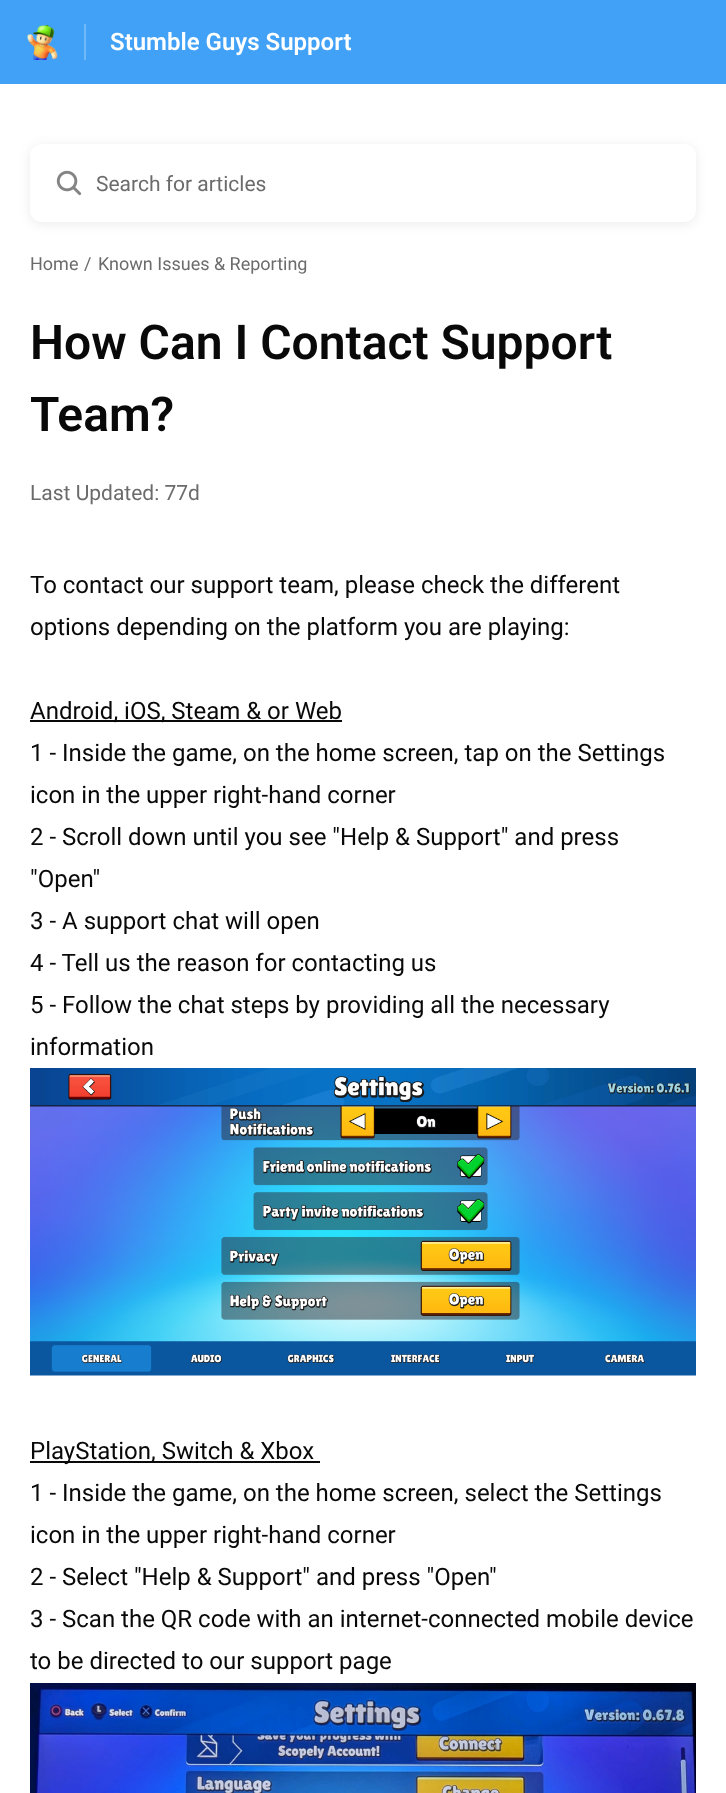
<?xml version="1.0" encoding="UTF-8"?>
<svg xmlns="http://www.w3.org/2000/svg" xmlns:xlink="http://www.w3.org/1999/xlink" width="726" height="1793">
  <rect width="100%" height="100%" fill="#ffffff" />
  <rect width="726" height="84" fill="#40a1f6" />
  <rect x="84" y="24" width="2" height="36" fill="#70b9f8" />
  <image x="27" y="25" width="31" height="35" xlink:href="image1.png" />
  <rect x="30" y="146" width="666" height="78" rx="12" fill="#000000" fill-opacity="0.08" filter="blur(6px)" />
  <rect x="30" y="144" width="666" height="78" rx="12" fill="#ffffff" />
  <image x="56" y="170" width="26" height="26" xlink:href="image2.png" />
  <rect x="30" y="720" width="312" height="2" fill="#090909" />
  <image x="30" y="1068" width="666" height="308" xlink:href="image3.png" />
  <rect x="30" y="1461" width="290" height="2" fill="#090909" />
  <image x="30" y="1683" width="666" height="110" xlink:href="image4.png" />
  <text x="110" y="50" style="font-family: Roboto; font-size: 24px; font-weight: 600; fill: #ffffff">Stumble Guys Support</text>
  <text x="96" y="191" style="font-family: Roboto; font-size: 21px; fill: #6b6b6b">Search for articles</text>
  <text x="30" y="270" style="font-family: Roboto; font-size: 18px; fill: #6b6b6b">Home</text>
  <text x="84" y="270" style="font-family: Roboto; font-size: 18px; fill: #6b6b6b">/</text>
  <text x="98" y="270" style="font-family: Roboto; font-size: 18px; fill: #6b6b6b">Known Issues &amp; Reporting</text>
  <text x="30" y="359" style="font-family: Roboto; font-size: 48px; font-weight: 600; fill: #090909">How Can I Contact Support</text>
  <text x="30" y="431" style="font-family: Roboto; font-size: 48px; font-weight: 600; fill: #090909">Team?</text>
  <text x="30" y="500" style="font-family: Roboto; font-size: 21px; fill: #6b6b6b">Last Updated: 77d</text>
  <text x="30" y="593" style="font-family: Roboto; font-size: 24px; fill: #090909">To contact our support team, please check the different</text>
  <text x="30" y="635" style="font-family: Roboto; font-size: 24px; fill: #090909">options depending on the platform you are playing:</text>
  <text x="30" y="719" style="font-family: Roboto; font-size: 24px; fill: #090909">Android, iOS, Steam &amp; or Web</text>
  <text x="30" y="761" style="font-family: Roboto; font-size: 24px; fill: #090909">1 - Inside the game, on the home screen, tap on the Settings</text>
  <text x="30" y="803" style="font-family: Roboto; font-size: 24px; fill: #090909">icon in the upper right-hand corner</text>
  <text x="30" y="845" style="font-family: Roboto; font-size: 24px; fill: #090909">2 - Scroll down until you see "Help &amp; Support" and press</text>
  <text x="30" y="887" style="font-family: Roboto; font-size: 24px; fill: #090909">"Open"</text>
  <text x="30" y="929" style="font-family: Roboto; font-size: 24px; fill: #090909">3 - A support chat will open</text>
  <text x="30" y="971" style="font-family: Roboto; font-size: 24px; fill: #090909">4 - Tell us the reason for contacting us</text>
  <text x="30" y="1013" style="font-family: Roboto; font-size: 24px; fill: #090909">5 - Follow the chat steps by providing all the necessary</text>
  <text x="30" y="1055" style="font-family: Roboto; font-size: 24px; fill: #090909">information</text>
  <text x="30" y="1459" style="font-family: Roboto; font-size: 24px; fill: #090909">PlayStation, Switch &amp; Xbox</text>
  <text x="30" y="1501" style="font-family: Roboto; font-size: 24px; fill: #090909">1 - Inside the game, on the home screen, select the Settings</text>
  <text x="30" y="1543" style="font-family: Roboto; font-size: 24px; fill: #090909">icon in the upper right-hand corner</text>
  <text x="30" y="1585" style="font-family: Roboto; font-size: 24px; fill: #090909">2 - Select "Help &amp; Support" and press "Open"</text>
  <text x="30" y="1627" style="font-family: Roboto; font-size: 24px; fill: #090909">3 - Scan the QR code with an internet-connected mobile device</text>
  <text x="30" y="1669" style="font-family: Roboto; font-size: 24px; fill: #090909">to be directed to our support page</text>
</svg>
